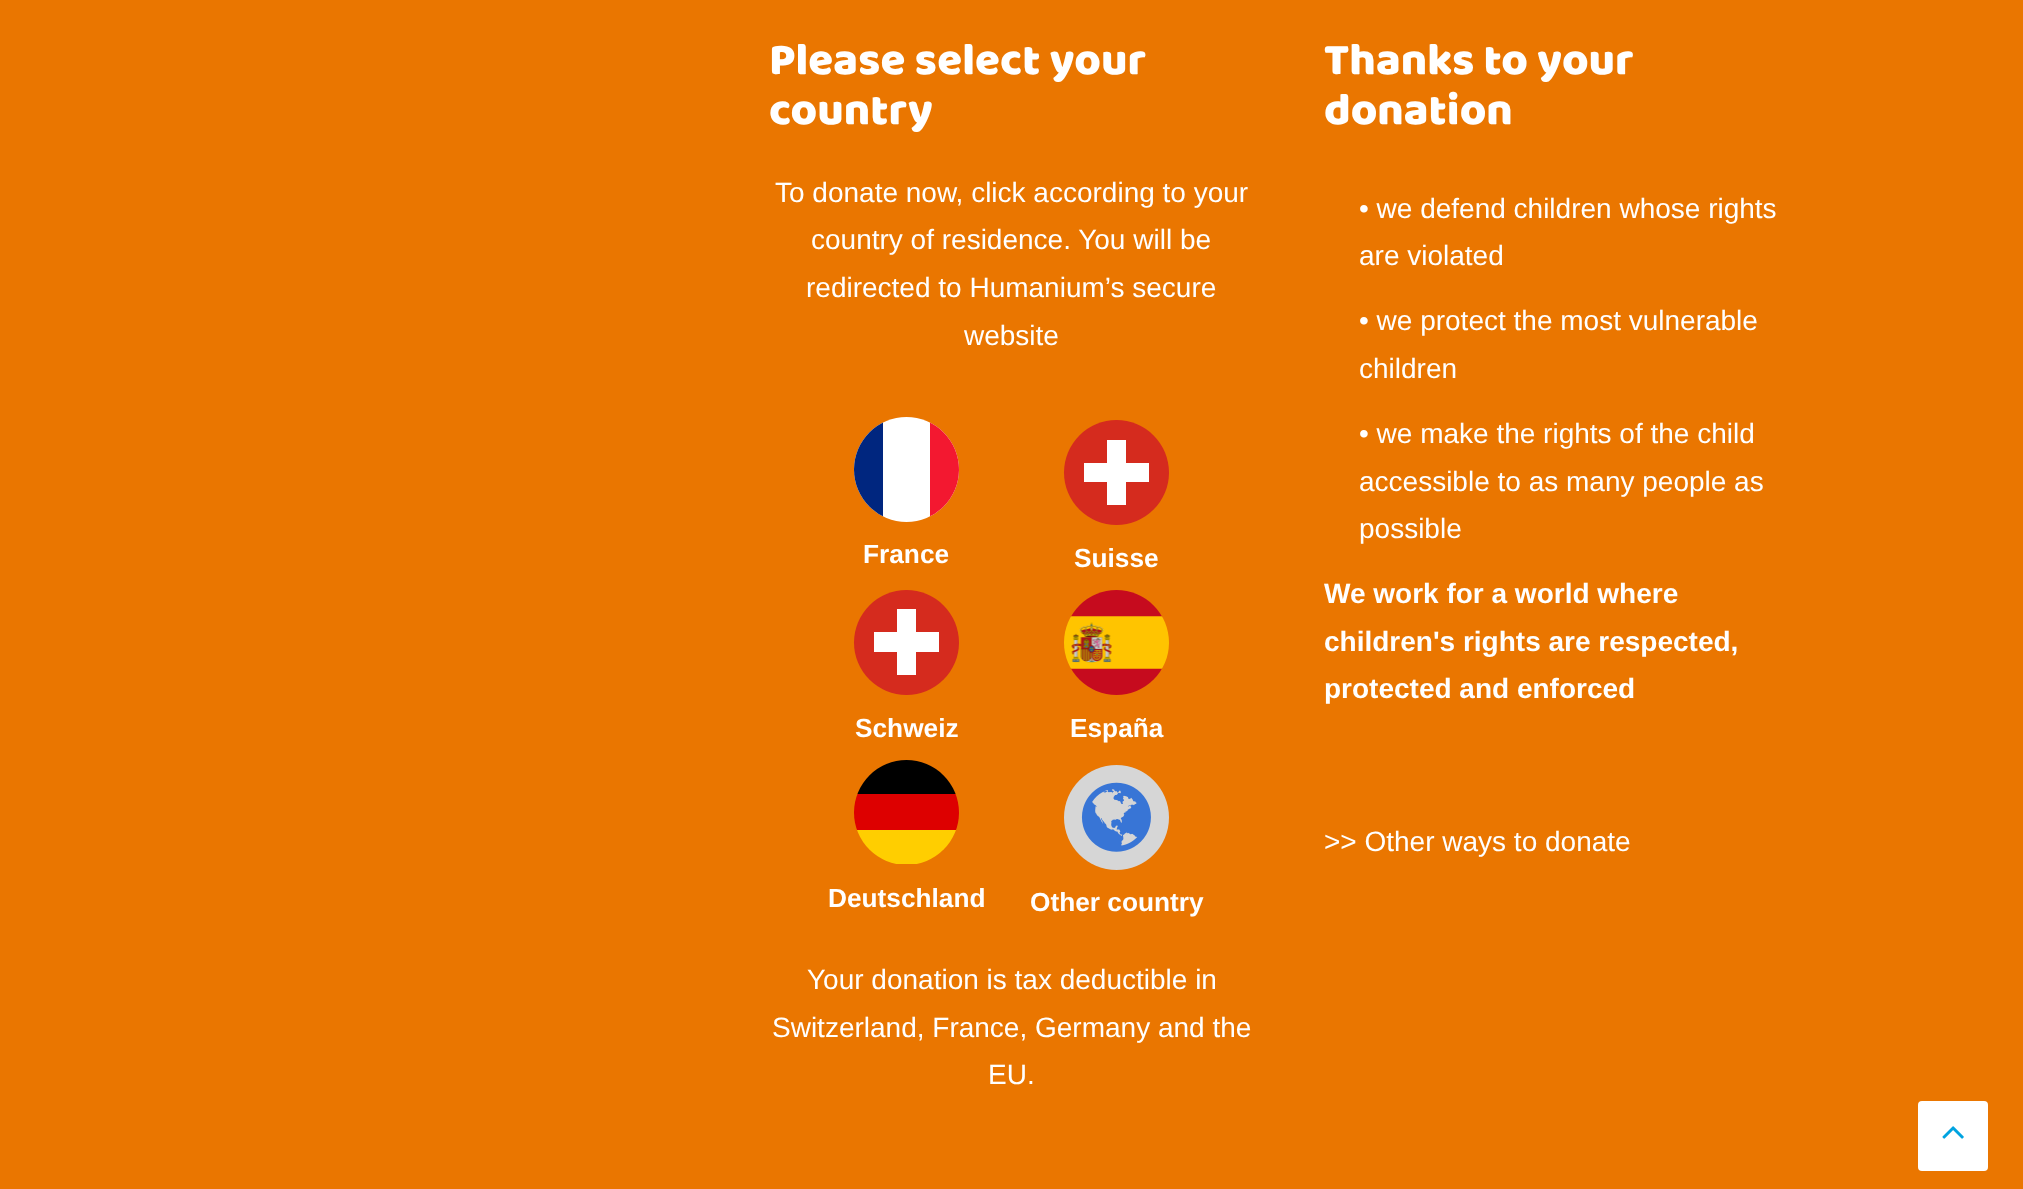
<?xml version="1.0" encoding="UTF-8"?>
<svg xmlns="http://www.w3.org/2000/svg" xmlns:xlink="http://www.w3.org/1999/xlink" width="2023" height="1189">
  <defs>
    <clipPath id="clip1"><rect x="854" y="417" width="105" height="105" rx="52.5" /></clipPath>
    <clipPath id="clip2"><rect x="854" y="760" width="105" height="105" rx="52.5" /></clipPath>
  </defs>
  <rect width="100%" height="100%" fill="#ea7600" />
  <circle cx="906.5" cy="469.5" r="52.5" fill="#ffffff" />
  <g clip-path="url(#clip1)">
    <rect x="854" y="422" width="29" height="95" fill="#00267f" />
    <rect x="930" y="422" width="29" height="95" fill="#f31830" />
  </g>
  <circle cx="1116.5" cy="472.5" r="52.5" fill="#d52b1e" />
  <rect x="1084" y="463" width="65" height="19" fill="#ffffff" />
  <rect x="1107" y="440" width="19" height="65" fill="#ffffff" />
  <circle cx="906.5" cy="642.5" r="52.5" fill="#d52b1e" />
  <rect x="874" y="632" width="65" height="20" fill="#ffffff" />
  <rect x="897" y="609" width="19" height="66" fill="#ffffff" />
  <image x="1064" y="590" width="105" height="105" xlink:href="image1.png" />
  <g clip-path="url(#clip2)">
    <rect x="857" y="830" width="99" height="34" fill="#ffce00" />
    <rect x="857" y="760" width="99" height="34" fill="#000000" />
    <rect x="854" y="794" width="105" height="36" fill="#dd0000" />
  </g>
  <image x="1064" y="765" width="105" height="105" xlink:href="image2.png" />
  <rect x="1918" y="1101" width="70" height="70" rx="4" fill="#ffffff" />
  <image x="1942" y="1126" width="22" height="13" xlink:href="image3.png" />
  <text x="769" y="74" style="font-family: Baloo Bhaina; font-size: 45.5px; fill: #ffffff">Please select your</text>
  <text x="769" y="124" style="font-family: Baloo Bhaina; font-size: 45.5px; fill: #ffffff">country</text>
  <text x="775" y="202" style="font-family: Liberation Sans; font-size: 28px; fill: #ffffff">To donate now, click according to your</text>
  <text x="811" y="249" style="font-family: Liberation Sans; font-size: 28px; fill: #ffffff">country of residence. You will be</text>
  <text x="806" y="297" style="font-family: Liberation Sans; font-size: 28px; fill: #ffffff">redirected to Humanium’s secure</text>
  <text x="964" y="345" style="font-family: Liberation Sans; font-size: 28px; fill: #ffffff">website</text>
  <text x="863" y="563" style="font-family: Liberation Sans; font-size: 26.25px; font-weight: bold; fill: #ffffff">France</text>
  <text x="1074" y="567" style="font-family: Liberation Sans; font-size: 26.25px; font-weight: bold; fill: #ffffff">Suisse</text>
  <text x="855" y="737" style="font-family: Liberation Sans; font-size: 26.25px; font-weight: bold; fill: #ffffff">Schweiz</text>
  <text x="1070" y="737" style="font-family: Liberation Sans; font-size: 26.25px; font-weight: bold; fill: #ffffff">España</text>
  <text x="828" y="907" style="font-family: Liberation Sans; font-size: 26.25px; font-weight: bold; fill: #ffffff">Deutschland</text>
  <text x="1030" y="911" style="font-family: Liberation Sans; font-size: 26.25px; font-weight: bold; fill: #ffffff">Other country</text>
  <text x="807" y="989" style="font-family: Liberation Sans; font-size: 28px; fill: #ffffff">Your donation is tax deductible in</text>
  <text x="772" y="1037" style="font-family: Liberation Sans; font-size: 28px; fill: #ffffff">Switzerland, France, Germany and the</text>
  <text x="988" y="1084" style="font-family: Liberation Sans; font-size: 28px; fill: #ffffff">EU.</text>
  <text x="1324" y="74" style="font-family: Baloo Bhaina; font-size: 45.5px; fill: #ffffff">Thanks to your</text>
  <text x="1324" y="124" style="font-family: Baloo Bhaina; font-size: 45.5px; fill: #ffffff">donation</text>
  <text x="1359" y="218" style="font-family: Liberation Sans; font-size: 28px; fill: #ffffff">• we defend children whose rights</text>
  <text x="1359" y="265" style="font-family: Liberation Sans; font-size: 28px; fill: #ffffff">are violated</text>
  <text x="1359" y="330" style="font-family: Liberation Sans; font-size: 28px; fill: #ffffff">• we protect the most vulnerable</text>
  <text x="1359" y="378" style="font-family: Liberation Sans; font-size: 28px; fill: #ffffff">children</text>
  <text x="1359" y="443" style="font-family: Liberation Sans; font-size: 28px; fill: #ffffff">• we make the rights of the child</text>
  <text x="1359" y="491" style="font-family: Liberation Sans; font-size: 28px; fill: #ffffff">accessible to as many people as</text>
  <text x="1359" y="538" style="font-family: Liberation Sans; font-size: 28px; fill: #ffffff">possible</text>
  <text x="1324" y="603" style="font-family: Liberation Sans; font-size: 28px; font-weight: bold; fill: #ffffff">We work for a world where</text>
  <text x="1324" y="651" style="font-family: Liberation Sans; font-size: 28px; font-weight: bold; fill: #ffffff">children's rights are respected,</text>
  <text x="1324" y="698" style="font-family: Liberation Sans; font-size: 28px; font-weight: bold; fill: #ffffff">protected and enforced</text>
  <text x="1324" y="851" style="font-family: Liberation Sans; font-size: 28px; fill: #ffffff">&gt;&gt; Other ways to donate</text>
</svg>
